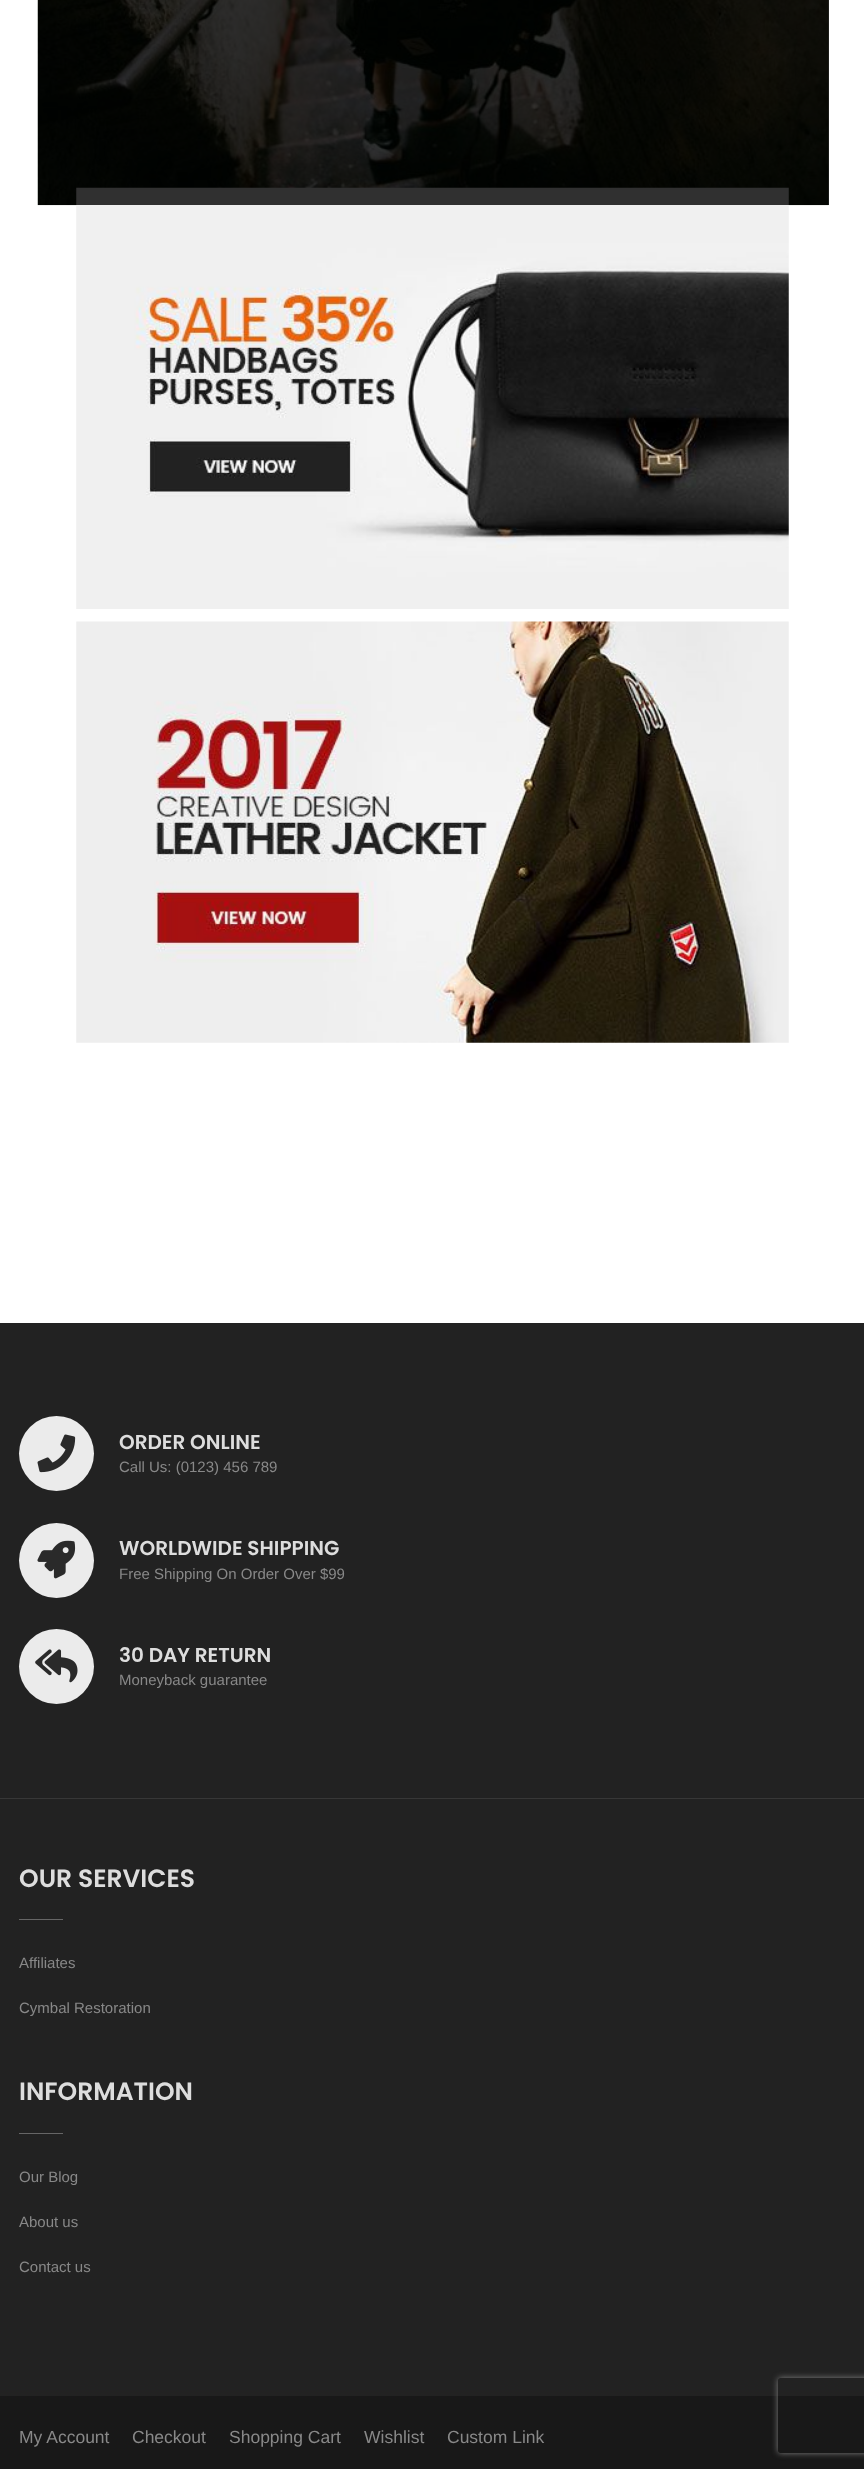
<?xml version="1.0" encoding="UTF-8"?>
<svg xmlns="http://www.w3.org/2000/svg" xmlns:xlink="http://www.w3.org/1999/xlink" width="864" height="2469">
  <defs>
    <clipPath id="clip1"><path d="M 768 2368 h 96 v 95 h -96 z m 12.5 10 h 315 c 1.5 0 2.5 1 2.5 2.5 v 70 c 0 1.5 -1 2.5 -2.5 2.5 h -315 c -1.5 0 -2.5 -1 -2.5 -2.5 v -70 c 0 -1.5 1 -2.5 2.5 -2.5 z" clip-rule="evenodd" /></clipPath>
  </defs>
  <rect width="100%" height="100%" fill="#ffffff" />
  <image x="37" y="0" width="792" height="206" xlink:href="image1.png" />
  <image x="76" y="187" width="713" height="422" xlink:href="image2.png" />
  <rect x="38" width="791" height="205" fill="#000000" fill-opacity="0.8" />
  <image x="76" y="621" width="713" height="422" xlink:href="image3.png" />
  <rect y="1323" width="864" height="475" fill="#222222" />
  <rect y="1798" width="864" height="1" fill="#373737" />
  <circle cx="56.5" cy="1453.5" r="37.5" fill="#ebebeb" />
  <image x="37" y="1434" width="39" height="39" xlink:href="image4.png" />
  <circle cx="56.5" cy="1560.5" r="37.5" fill="#ebebeb" />
  <image x="37" y="1540" width="39" height="39" xlink:href="image5.png" />
  <circle cx="56.5" cy="1666.5" r="37.5" fill="#ebebeb" />
  <image x="35" y="1649" width="43" height="34" xlink:href="image6.png" />
  <rect y="1799" width="864" height="597" fill="#222222" />
  <rect x="19" y="1919" width="44" height="1" fill="#666666" />
  <rect x="19" y="2133" width="44" height="1" fill="#666666" />
  <rect y="2396" width="864" height="73" fill="#181818" />
  <g clip-path="url(#clip1)">
    <rect x="778" y="2378" width="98" height="75" rx="2.5" fill="#808080" filter="blur(3px)" />
  </g>
  <text x="119" y="1449" style="font-family: Poppins; font-size: 20px; font-weight: 600; fill: #dddddd">ORDER ONLINE</text>
  <text x="119" y="1472" style="font-family: Liberation Sans; font-size: 15px; fill: #888888">Call Us: (0123) 456 789</text>
  <text x="119" y="1555" style="font-family: Poppins; font-size: 20px; font-weight: 600; fill: #dddddd">WORLDWIDE SHIPPING</text>
  <text x="119" y="1579" style="font-family: Liberation Sans; font-size: 15px; fill: #888888">Free Shipping On Order Over $99</text>
  <text x="119" y="1662" style="font-family: Poppins; font-size: 20px; font-weight: 600; fill: #dddddd">30 DAY RETURN</text>
  <text x="119" y="1685" style="font-family: Liberation Sans; font-size: 15px; fill: #888888">Moneyback guarantee</text>
  <text x="19" y="1887" style="font-family: Poppins; font-size: 25px; font-weight: 600; fill: #dddddd">OUR SERVICES</text>
  <text x="19" y="1968" style="font-family: Liberation Sans; font-size: 15px; fill: #888888">Affiliates</text>
  <text x="19" y="2013" style="font-family: Liberation Sans; font-size: 15px; fill: #888888">Cymbal Restoration</text>
  <text x="19" y="2100" style="font-family: Poppins; font-size: 25px; font-weight: 600; fill: #dddddd">INFORMATION</text>
  <text x="19" y="2182" style="font-family: Liberation Sans; font-size: 15px; fill: #888888">Our Blog</text>
  <text x="19" y="2227" style="font-family: Liberation Sans; font-size: 15px; fill: #888888">About us</text>
  <text x="19" y="2272" style="font-family: Liberation Sans; font-size: 15px; fill: #888888">Contact us</text>
  <text x="19" y="2443" style="font-family: Liberation Sans; font-size: 17.5px; fill: #888888">My Account</text>
  <text x="132" y="2443" style="font-family: Liberation Sans; font-size: 17.5px; fill: #888888">Checkout</text>
  <text x="229" y="2443" style="font-family: Liberation Sans; font-size: 17.5px; fill: #888888">Shopping Cart</text>
  <text x="364" y="2443" style="font-family: Liberation Sans; font-size: 17.5px; fill: #888888">Wishlist</text>
  <text x="447" y="2443" style="font-family: Liberation Sans; font-size: 17.5px; fill: #888888">Custom Link</text>
</svg>
